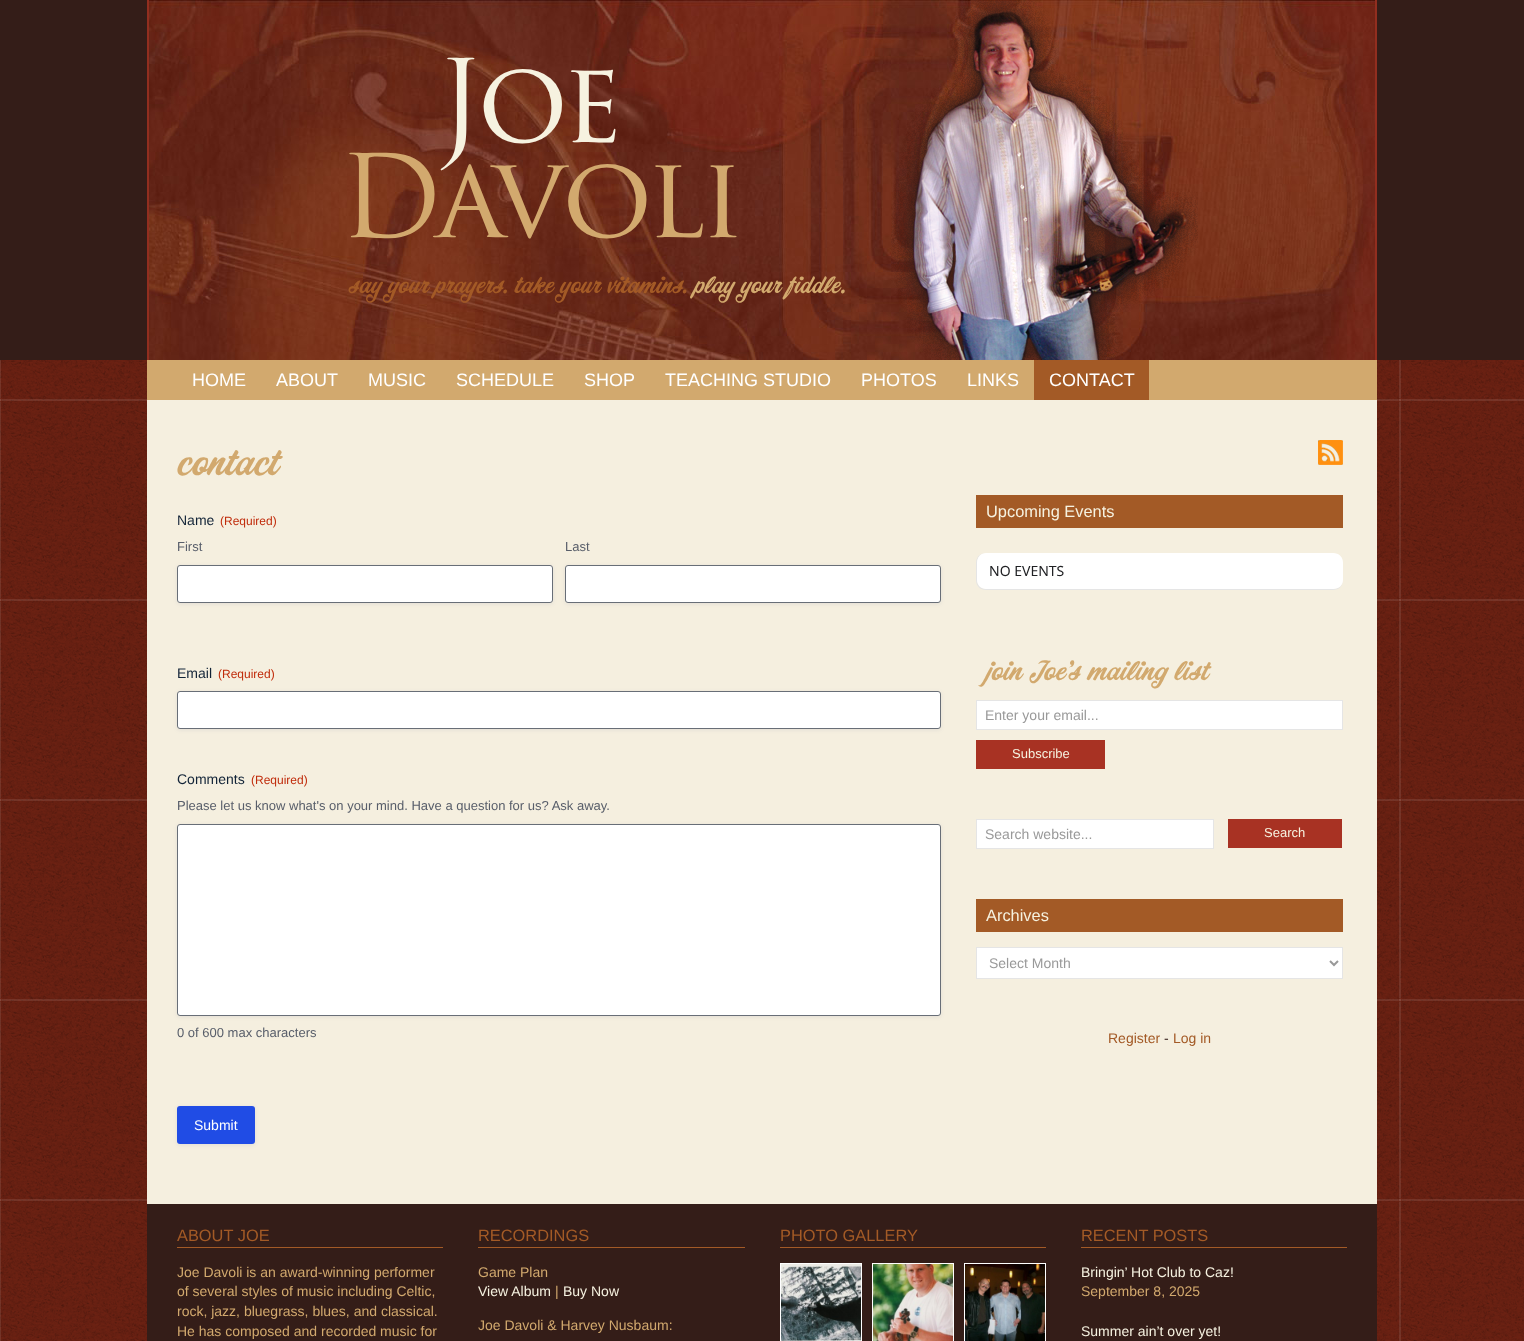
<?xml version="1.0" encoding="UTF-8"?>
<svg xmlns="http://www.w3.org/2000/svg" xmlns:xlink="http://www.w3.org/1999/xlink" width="1524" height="1341">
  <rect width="100%" height="100%" fill="#ffffff" />
  <image x="0" y="360" width="1524" height="981" xlink:href="image1.png" />
  <rect width="1524" height="360" fill="#341d18" />
  <image x="149" y="0" width="1226" height="360" xlink:href="image2.png" />
  <rect x="1375" width="2" height="360" fill="#922e1f" />
  <rect x="147" width="2" height="360" fill="#922e1f" />
  <image x="891" y="0" width="307" height="360" xlink:href="image3.png" />
  <rect x="147" y="360" width="1230" height="40" fill="#d2a96e" />
  <rect x="1034" y="360" width="115" height="40" fill="#a35a26" />
  <rect x="147" y="400" width="1230" height="804" fill="#f5efdf" />
  <rect x="177" y="566" width="376" height="38" rx="3" fill="#121961" fill-opacity="0.08" filter="blur(2px)" />
  <rect x="177.5" y="565.5" width="375" height="37" rx="2.5" fill="#ffffff" stroke="#686e77" />
  <rect x="565" y="566" width="376" height="38" rx="3" fill="#121961" fill-opacity="0.08" filter="blur(2px)" />
  <rect x="565.5" y="565.5" width="375" height="37" rx="2.5" fill="#ffffff" stroke="#686e77" />
  <rect x="177" y="692" width="764" height="38" rx="3" fill="#121961" fill-opacity="0.08" filter="blur(2px)" />
  <rect x="177.5" y="691.5" width="763" height="37" rx="2.5" fill="#ffffff" stroke="#686e77" />
  <rect x="177" y="825" width="764" height="192" rx="3" fill="#121961" fill-opacity="0.08" filter="blur(2px)" />
  <rect x="177.5" y="824.5" width="763" height="191" rx="2.5" fill="#ffffff" stroke="#686e77" />
  <rect x="177" y="1107" width="78" height="38" rx="3" fill="#121961" fill-opacity="0.08" filter="blur(2px)" />
  <rect x="177" y="1106" width="78" height="38" rx="3" fill="#204ce5" />
  <image x="1318" y="440" width="25" height="25" xlink:href="image4.png" />
  <rect x="976" y="495" width="367" height="33" fill="#a35a26" />
  <path d="M 986 553 h 347 c 6 0 10 4 10 10 v 17 c 0 6 -4 10 -10 10 h -347 c -6 0 -10 -4 -10 -10 v -17 c 0 -6 4 -10 10 -10 z m 0 0 h 347 c 6 0 10 4 10 10 v 17 c 0 5 -4 9 -10 9 h -347 c -5 0 -9 -4 -9 -9 v -17 c 0 -6 4 -10 9 -10 z" fill="#e5e5e5" fill-rule="evenodd" />
  <path d="M 986 553 c -5 0 -9 4 -9 10 v 17 c 0 5 4 9 9 9 h 347 c 6 0 10 -4 10 -9 v -17 c 0 -6 -4 -10 -10 -10 z" fill="#ffffff" />
  <rect x="976.5" y="700.5" width="366" height="29" fill="#ffffff" stroke="#e5e5e5" />
  <rect x="976" y="740" width="129" height="29" fill="#a83223" />
  <rect x="976.5" y="819.5" width="237" height="29" fill="#ffffff" stroke="#e5e5e5" />
  <rect x="1228" y="819" width="114" height="29" fill="#a83223" />
  <rect x="976" y="899" width="367" height="33" fill="#a35a26" />
  <rect x="976.5" y="947.5" width="366" height="31" fill="#ffffff" stroke="#e5e5e5" />
  <path d="M 1330 961 l 4 4 l 4 -4" fill="none" stroke="#999999" stroke-width="2" />
  <rect x="147" y="1204" width="1230" height="137" fill="#341d18" />
  <rect x="177" y="1247" width="266" height="1" fill="#a35a26" />
  <rect x="478" y="1247" width="267" height="1" fill="#a35a26" />
  <rect x="780" y="1247" width="266" height="1" fill="#a35a26" />
  <rect x="780.5" y="1263.5" width="81" height="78" fill="none" stroke="#ffffff" />
  <image x="781" y="1264" width="80" height="77" xlink:href="image5.png" />
  <rect x="872.5" y="1263.5" width="81" height="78" fill="none" stroke="#ffffff" />
  <image x="873" y="1264" width="80" height="77" xlink:href="image6.png" />
  <rect x="964.5" y="1263.5" width="81" height="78" fill="none" stroke="#ffffff" />
  <image x="965" y="1264" width="80" height="77" xlink:href="image7.png" />
  <rect x="1081" y="1247" width="266" height="1" fill="#a35a26" />
  <text x="437" y="142" style="font-family: 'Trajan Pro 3'; font-size: 112px; letter-spacing: -5px; fill: #f6f2e0">Joe</text>
  <text x="339" y="237" style="font-family: 'Trajan Pro 3'; font-size: 112px; letter-spacing: -5px; fill: #d2a96e">Davoli</text>
  <text x="349" y="293" style="font-family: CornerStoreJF; font-size: 22.4px; fill: #a35a26">say your prayers. take your vitamins.</text>
  <text x="694" y="293" style="font-family: CornerStoreJF; font-size: 22.4px; fill: #d2a96e">play your fiddle.</text>
  <text x="192" y="386" style="font-family: Liberation Sans; font-size: 18px; fill: #ffffff">HOME</text>
  <text x="276" y="386" style="font-family: Liberation Sans; font-size: 18px; fill: #ffffff">ABOUT</text>
  <text x="368" y="386" style="font-family: Liberation Sans; font-size: 18px; fill: #ffffff">MUSIC</text>
  <text x="456" y="386" style="font-family: Liberation Sans; font-size: 18px; fill: #ffffff">SCHEDULE</text>
  <text x="584" y="386" style="font-family: Liberation Sans; font-size: 18px; fill: #ffffff">SHOP</text>
  <text x="665" y="386" style="font-family: Liberation Sans; font-size: 18px; fill: #ffffff">TEACHING STUDIO</text>
  <text x="861" y="386" style="font-family: Liberation Sans; font-size: 18px; fill: #ffffff">PHOTOS</text>
  <text x="967" y="386" style="font-family: Liberation Sans; font-size: 18px; fill: #ffffff">LINKS</text>
  <text x="1049" y="386" style="font-family: Liberation Sans; font-size: 18px; fill: #ffffff">CONTACT</text>
  <text x="177" y="475" style="font-family: CornerStoreJF; font-size: 35px; fill: #d2a96e">contact</text>
  <text x="177" y="525" style="font-family: Liberation Sans; font-size: 14px; fill: #112337">Name</text>
  <text x="220" y="525" style="font-family: Liberation Sans; font-size: 12px; fill: #c02b0a">(Required)</text>
  <text x="177" y="551" style="font-family: Liberation Sans; font-size: 13px; fill: #585e6a">First</text>
  <text x="565" y="551" style="font-family: Liberation Sans; font-size: 13px; fill: #585e6a">Last</text>
  <text x="177" y="678" style="font-family: Liberation Sans; font-size: 14px; fill: #112337">Email</text>
  <text x="218" y="678" style="font-family: Liberation Sans; font-size: 12px; fill: #c02b0a">(Required)</text>
  <text x="177" y="784" style="font-family: Liberation Sans; font-size: 14px; fill: #112337">Comments</text>
  <text x="251" y="784" style="font-family: Liberation Sans; font-size: 12px; fill: #c02b0a">(Required)</text>
  <text x="177" y="810" style="font-family: Liberation Sans; font-size: 13px; fill: #585e6a">Please let us know what's on your mind. Have a question for us? Ask away.</text>
  <text x="177" y="1037" style="font-family: Liberation Sans; font-size: 13px; fill: #585e6a">0 of 600 max characters</text>
  <text x="194" y="1130" style="font-family: Liberation Sans; font-size: 14px; fill: #ffffff">Submit</text>
  <text x="986" y="517" style="font-family: Liberation Sans; font-size: 16.4px; fill: #f6f2e0">Upcoming Events</text>
  <text x="989" y="576" style="font-family: Noto Sans; font-size: 14px; fill: #202124">NO EVENTS</text>
  <text x="986" y="680" style="font-family: CornerStoreJF; font-size: 25.25px; fill: #d2a96e">join Joe's mailing list</text>
  <text x="985" y="720" style="font-family: Liberation Sans; font-size: 14px; fill: #999999">Enter your email...</text>
  <text x="1012" y="758" style="font-family: Liberation Sans; font-size: 13px; fill: #f6f2e0">Subscribe</text>
  <text x="985" y="839" style="font-family: Liberation Sans; font-size: 14px; fill: #999999">Search website...</text>
  <text x="1264" y="837" style="font-family: Liberation Sans; font-size: 13px; fill: #f6f2e0">Search</text>
  <text x="986" y="921" style="font-family: Liberation Sans; font-size: 16.4px; fill: #f6f2e0">Archives</text>
  <text x="989" y="968" style="font-family: Liberation Sans; font-size: 14px; fill: #999999">Select Month</text>
  <text x="1108" y="1043" style="font-family: Liberation Sans; font-size: 14px; fill: #a35a26">Register</text>
  <text x="1164" y="1043" style="font-family: Liberation Sans; font-size: 14px; fill: #341d18">-</text>
  <text x="1173" y="1043" style="font-family: Liberation Sans; font-size: 14px; fill: #a35a26">Log in</text>
  <text x="177" y="1241" style="font-family: Liberation Sans; font-size: 16.4px; fill: #a35a26">ABOUT JOE</text>
  <text x="177" y="1277" style="font-family: Liberation Sans; font-size: 14px; fill: #d2a96e">Joe Davoli is an award-winning performer</text>
  <text x="177" y="1296" style="font-family: Liberation Sans; font-size: 14px; fill: #d2a96e">of several styles of music including Celtic,</text>
  <text x="177" y="1316" style="font-family: Liberation Sans; font-size: 14px; fill: #d2a96e">rock, jazz, bluegrass, blues, and classical.</text>
  <text x="177" y="1336" style="font-family: Liberation Sans; font-size: 14px; fill: #d2a96e">He has composed and recorded music for</text>
  <text x="478" y="1241" style="font-family: Liberation Sans; font-size: 16.4px; fill: #a35a26">RECORDINGS</text>
  <text x="478" y="1277" style="font-family: Liberation Sans; font-size: 14px; fill: #d2a96e">Game Plan</text>
  <text x="478" y="1296" style="font-family: Liberation Sans; font-size: 14px; fill: #f6f2e0">View Album</text>
  <text x="555" y="1296" style="font-family: Liberation Sans; font-size: 14px; fill: #d2a96e">|</text>
  <text x="563" y="1296" style="font-family: Liberation Sans; font-size: 14px; fill: #f6f2e0">Buy Now</text>
  <text x="478" y="1330" style="font-family: Liberation Sans; font-size: 14px; fill: #d2a96e">Joe Davoli &amp; Harvey Nusbaum:</text>
  <text x="780" y="1241" style="font-family: Liberation Sans; font-size: 16.4px; fill: #a35a26">PHOTO GALLERY</text>
  <text x="1081" y="1241" style="font-family: Liberation Sans; font-size: 16.4px; fill: #a35a26">RECENT POSTS</text>
  <text x="1081" y="1277" style="font-family: Liberation Sans; font-size: 14px; fill: #f6f2e0">Bringin’ Hot Club to Caz!</text>
  <text x="1081" y="1296" style="font-family: Liberation Sans; font-size: 14px; fill: #d2a96e">September 8, 2025</text>
  <text x="1081" y="1336" style="font-family: Liberation Sans; font-size: 14px; fill: #f6f2e0">Summer ain’t over yet!</text>
</svg>
